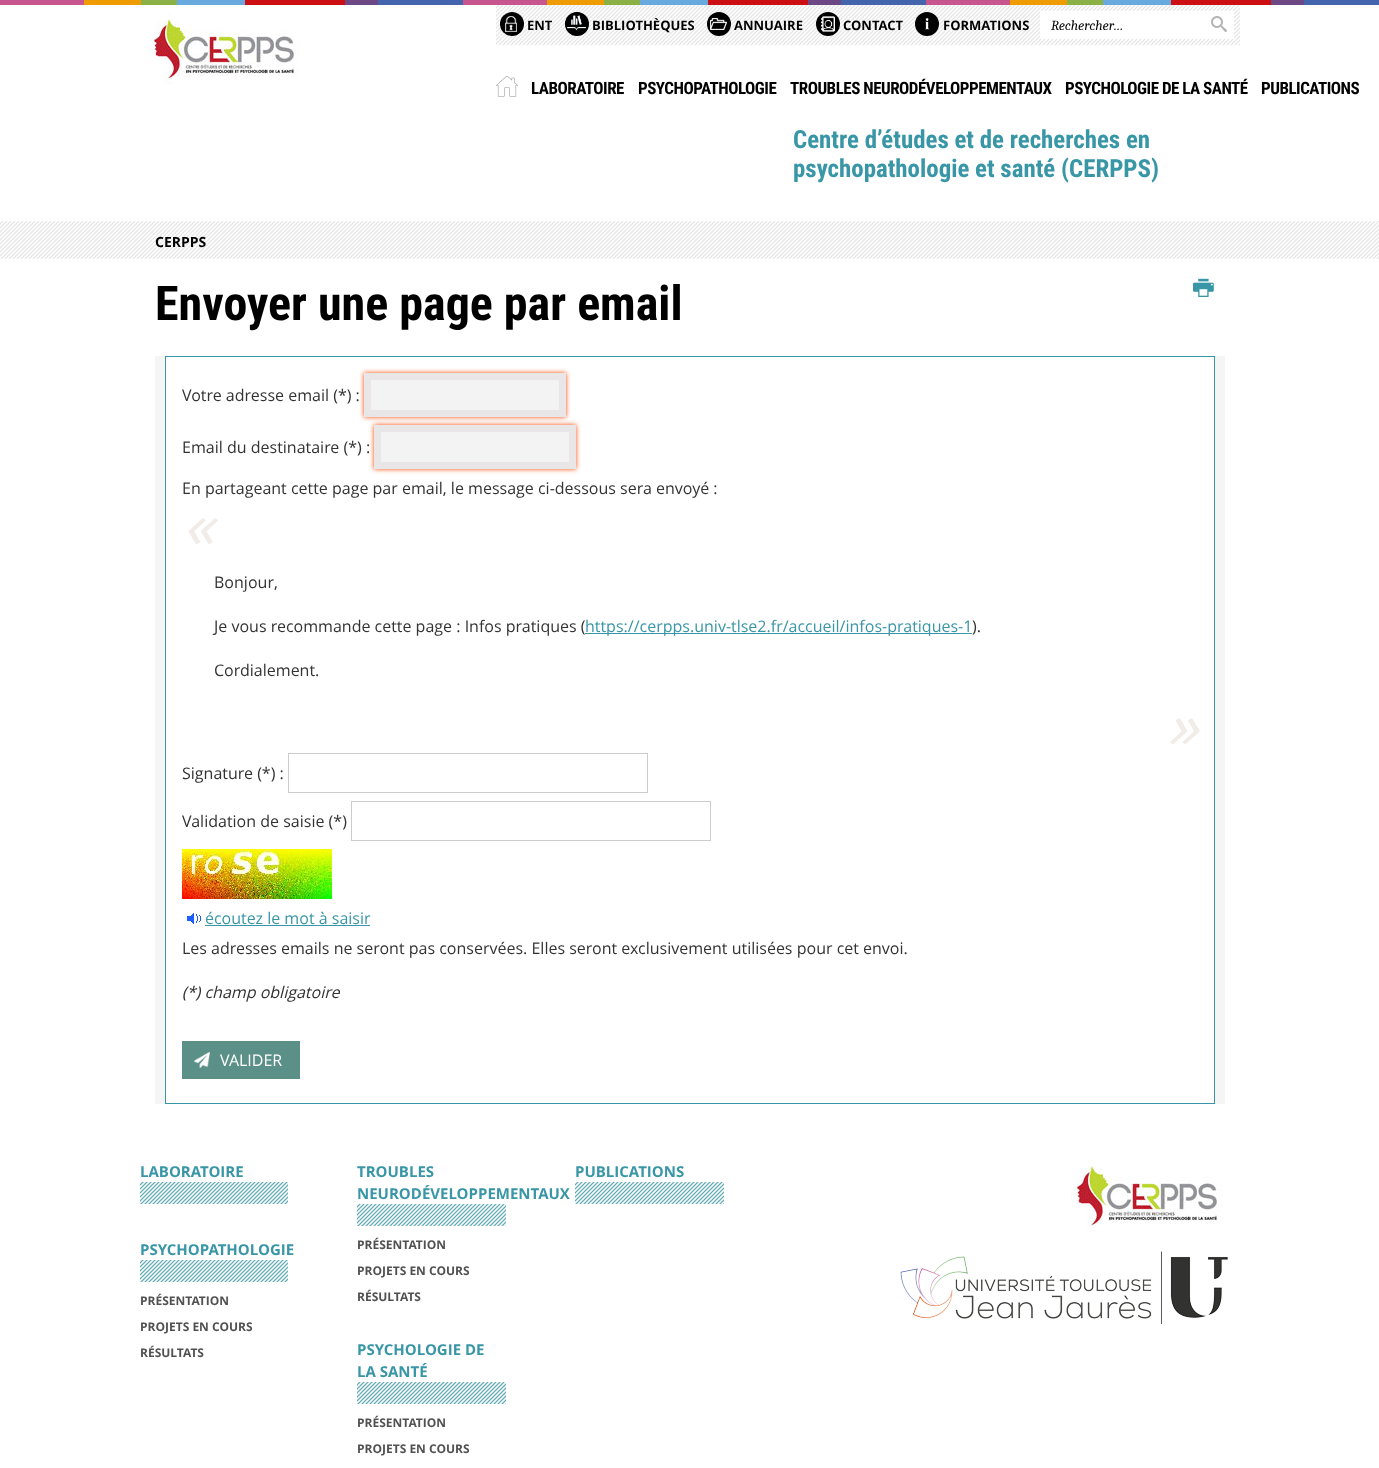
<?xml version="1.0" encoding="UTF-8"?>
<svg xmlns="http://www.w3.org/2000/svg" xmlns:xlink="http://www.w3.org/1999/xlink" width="1379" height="1468">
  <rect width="100%" height="100%" fill="#ffffff" />
  <image x="0" y="0" width="1379" height="5" xlink:href="image1.png" />
  <image x="148" y="13" width="152" height="71" xlink:href="image2.png" />
  <rect x="496" y="5" width="744" height="40" fill="#e5e5e5" />
  <image x="496" y="5" width="744" height="40" xlink:href="image3.png" />
  <circle cx="512" cy="24" r="12" fill="#000000" />
  <image x="505" y="16" width="12" height="16" xlink:href="image4.png" />
  <circle cx="577" cy="24" r="12" fill="#000000" />
  <image x="565" y="12" width="21" height="24" xlink:href="image5.png" />
  <circle cx="719" cy="24" r="12" fill="#000000" />
  <image x="710" y="18" width="17" height="12" xlink:href="image6.png" />
  <circle cx="828" cy="24" r="12" fill="#000000" />
  <image x="821" y="16" width="14" height="16" xlink:href="image7.png" />
  <circle cx="927" cy="24" r="12" fill="#000000" />
  <image x="925" y="18" width="5" height="12" xlink:href="image8.png" />
  <rect x="1040" y="11" width="194" height="28" fill="#ffffff" />
  <image x="1211" y="16" width="16" height="16" xlink:href="image9.png" />
  <image x="496" y="76" width="22" height="21" xlink:href="image10.png" />
  <rect y="221" width="1379" height="38" fill="#e5e5e5" />
  <image x="0" y="221" width="1379" height="38" xlink:href="image11.png" />
  <image x="1193" y="278" width="21" height="19" xlink:href="image12.png" />
  <rect x="155" y="356" width="1070" height="748" fill="#f5f5f5" />
  <rect x="165.5" y="356.5" width="1049" height="747" fill="#ffffff" stroke="#3896a7" />
  <rect x="364" y="373" width="202" height="44" fill="#ff4500" filter="blur(2.5px)" />
  <rect x="367.5" y="376.5" width="195" height="37" fill="#f3f3f3" stroke="#e8e6e6" stroke-width="7" />
  <rect x="374" y="425" width="202" height="44" fill="#ff4500" filter="blur(2.5px)" />
  <rect x="377.5" y="428.5" width="195" height="37" fill="#f3f3f3" stroke="#e8e6e6" stroke-width="7" />
  <rect x="585" y="633" width="387" height="1" fill="#3896a7" />
  <rect x="288.5" y="753.5" width="359" height="39" fill="none" stroke="#cccccc" />
  <rect x="351.5" y="801.5" width="359" height="39" fill="none" stroke="#cccccc" />
  <image x="182" y="849" width="150" height="50" xlink:href="image13.png" />
  <image x="187" y="913" width="14" height="11" xlink:href="image14.png" />
  <rect x="205" y="925" width="165" height="1" fill="#3896a7" />
  <rect x="182" y="1041" width="118" height="38" fill="#5a9087" />
  <image x="194" y="1052" width="16" height="16" xlink:href="image15.png" />
  <rect x="140" y="1182" width="148" height="22" fill="#5fabb8" />
  <image x="140" y="1182" width="148" height="22" xlink:href="image16.png" />
  <rect x="140" y="1260" width="148" height="22" fill="#5fabb8" />
  <image x="140" y="1260" width="148" height="22" xlink:href="image16.png" />
  <rect x="357" y="1204" width="149" height="22" fill="#5fabb8" />
  <image x="357" y="1204" width="149" height="22" xlink:href="image17.png" />
  <rect x="357" y="1382" width="149" height="22" fill="#5fabb8" />
  <image x="357" y="1382" width="149" height="22" xlink:href="image17.png" />
  <rect x="575" y="1182" width="149" height="22" fill="#5fabb8" />
  <image x="575" y="1182" width="149" height="22" xlink:href="image17.png" />
  <image x="1071" y="1160" width="152" height="71" xlink:href="image2.png" />
  <image x="900" y="1251" width="328" height="73" xlink:href="image18.png" />
  <text x="527" y="30" style="font-family: Open Sans; font-size: 13px; font-weight: bold; fill: #000000">ENT</text>
  <text x="592" y="30" style="font-family: Open Sans; font-size: 13px; font-weight: bold; fill: #000000">BIBLIOTHÈQUES</text>
  <text x="734" y="30" style="font-family: Open Sans; font-size: 13px; font-weight: bold; fill: #000000">ANNUAIRE</text>
  <text x="843" y="30" style="font-family: Open Sans; font-size: 13px; font-weight: bold; fill: #000000">CONTACT</text>
  <text x="943" y="30" style="font-family: Open Sans; font-size: 13px; font-weight: bold; fill: #000000">FORMATIONS</text>
  <text x="1051" y="30" style="font-family: Caladea; font-size: 14px; font-style: italic; fill: #000000">Rechercher…</text>
  <text x="531" y="94" style="font-family: Roboto Condensed; font-size: 17px; font-weight: bold; letter-spacing: -0.5px; fill: #000000">LABORATOIRE</text>
  <text x="638" y="94" style="font-family: Roboto Condensed; font-size: 17px; font-weight: bold; letter-spacing: -0.5px; fill: #000000">PSYCHOPATHOLOGIE</text>
  <text x="790" y="94" style="font-family: Roboto Condensed; font-size: 17px; font-weight: bold; letter-spacing: -0.5px; fill: #000000">TROUBLES NEURODÉVELOPPEMENTAUX</text>
  <text x="1065" y="94" style="font-family: Roboto Condensed; font-size: 17px; font-weight: bold; letter-spacing: -0.5px; fill: #000000">PSYCHOLOGIE DE LA SANTÉ</text>
  <text x="1261" y="94" style="font-family: Roboto Condensed; font-size: 17px; font-weight: bold; letter-spacing: -0.5px; fill: #000000">PUBLICATIONS</text>
  <text x="793" y="148" style="font-family: Roboto Condensed; font-size: 24.9px; font-weight: bold; fill: #3896a7">Centre d’études et de recherches en</text>
  <text x="793" y="177" style="font-family: Roboto Condensed; font-size: 24.9px; font-weight: bold; fill: #3896a7">psychopathologie et santé (CERPPS)</text>
  <text x="155" y="247" style="font-family: Open Sans; font-size: 14px; font-weight: bold; fill: #000000">CERPPS</text>
  <text x="155" y="320" style="font-family: Roboto Condensed; font-size: 48px; font-weight: bold; fill: #000000">Envoyer une page par email</text>
  <text x="182" y="401" style="font-family: Open Sans; font-size: 16px; fill: #333333">Votre adresse email (*) :</text>
  <text x="182" y="453" style="font-family: Open Sans; font-size: 16px; fill: #333333">Email du destinataire (*) :</text>
  <text x="182" y="494" style="font-family: Open Sans; font-size: 16px; fill: #333333">En partageant cette page par email, le message ci-dessous sera envoyé :</text>
  <text x="182" y="548" style="font-family: Open Sans; font-size: 64px; font-style: italic; fill: #f1ece8">«</text>
  <text x="214" y="588" style="font-family: Open Sans; font-size: 16px; fill: #333333">Bonjour,</text>
  <text x="214" y="632" style="font-family: Open Sans; font-size: 16px; fill: #333333">Je vous recommande cette page : Infos pratiques (</text>
  <text x="585" y="632" style="font-family: Open Sans; font-size: 16px; fill: #3896a7">https://cerpps.univ-tlse2.fr/accueil/infos-pratiques-1</text>
  <text x="972" y="632" style="font-family: Open Sans; font-size: 16px; fill: #333333">).</text>
  <text x="214" y="676" style="font-family: Open Sans; font-size: 16px; fill: #333333">Cordialement.</text>
  <text x="1166" y="748" style="font-family: Open Sans; font-size: 64px; font-style: italic; fill: #f1ece8">»</text>
  <text x="182" y="779" style="font-family: Open Sans; font-size: 16px; fill: #333333">Signature (*) :</text>
  <text x="182" y="827" style="font-family: Open Sans; font-size: 16px; fill: #333333">Validation de saisie (*)</text>
  <text x="205" y="924" style="font-family: Open Sans; font-size: 16px; fill: #3896a7">écoutez le mot à saisir</text>
  <text x="182" y="954" style="font-family: Open Sans; font-size: 16px; fill: #333333">Les adresses emails ne seront pas conservées. Elles seront exclusivement utilisées pour cet envoi.</text>
  <text x="182" y="998" style="font-family: Open Sans; font-size: 16px; font-style: italic; fill: #333333">(*) champ obligatoire</text>
  <text x="220" y="1066" style="font-family: Open Sans; font-size: 16px; fill: #ffffff">VALIDER</text>
  <text x="140" y="1177" style="font-family: Open Sans; font-size: 15px; font-weight: bold; fill: #3896a7">LABORATOIRE</text>
  <text x="140" y="1255" style="font-family: Open Sans; font-size: 15px; font-weight: bold; fill: #3896a7">PSYCHOPATHOLOGIE</text>
  <text x="140" y="1305" style="font-family: Open Sans; font-size: 12px; font-weight: bold; fill: #525151">PRÉSENTATION</text>
  <text x="140" y="1331" style="font-family: Open Sans; font-size: 12px; font-weight: bold; fill: #525151">PROJETS EN COURS</text>
  <text x="140" y="1357" style="font-family: Open Sans; font-size: 12px; font-weight: bold; fill: #525151">RÉSULTATS</text>
  <text x="357" y="1177" style="font-family: Open Sans; font-size: 15px; font-weight: bold; fill: #3896a7">TROUBLES</text>
  <text x="357" y="1199" style="font-family: Open Sans; font-size: 15px; font-weight: bold; fill: #3896a7">NEURODÉVELOPPEMENTAUX</text>
  <text x="357" y="1249" style="font-family: Open Sans; font-size: 12px; font-weight: bold; fill: #525151">PRÉSENTATION</text>
  <text x="357" y="1275" style="font-family: Open Sans; font-size: 12px; font-weight: bold; fill: #525151">PROJETS EN COURS</text>
  <text x="357" y="1301" style="font-family: Open Sans; font-size: 12px; font-weight: bold; fill: #525151">RÉSULTATS</text>
  <text x="357" y="1355" style="font-family: Open Sans; font-size: 15px; font-weight: bold; fill: #3896a7">PSYCHOLOGIE DE</text>
  <text x="357" y="1377" style="font-family: Open Sans; font-size: 15px; font-weight: bold; fill: #3896a7">LA SANTÉ</text>
  <text x="357" y="1427" style="font-family: Open Sans; font-size: 12px; font-weight: bold; fill: #525151">PRÉSENTATION</text>
  <text x="357" y="1453" style="font-family: Open Sans; font-size: 12px; font-weight: bold; fill: #525151">PROJETS EN COURS</text>
  <text x="575" y="1177" style="font-family: Open Sans; font-size: 15px; font-weight: bold; fill: #3896a7">PUBLICATIONS</text>
</svg>
